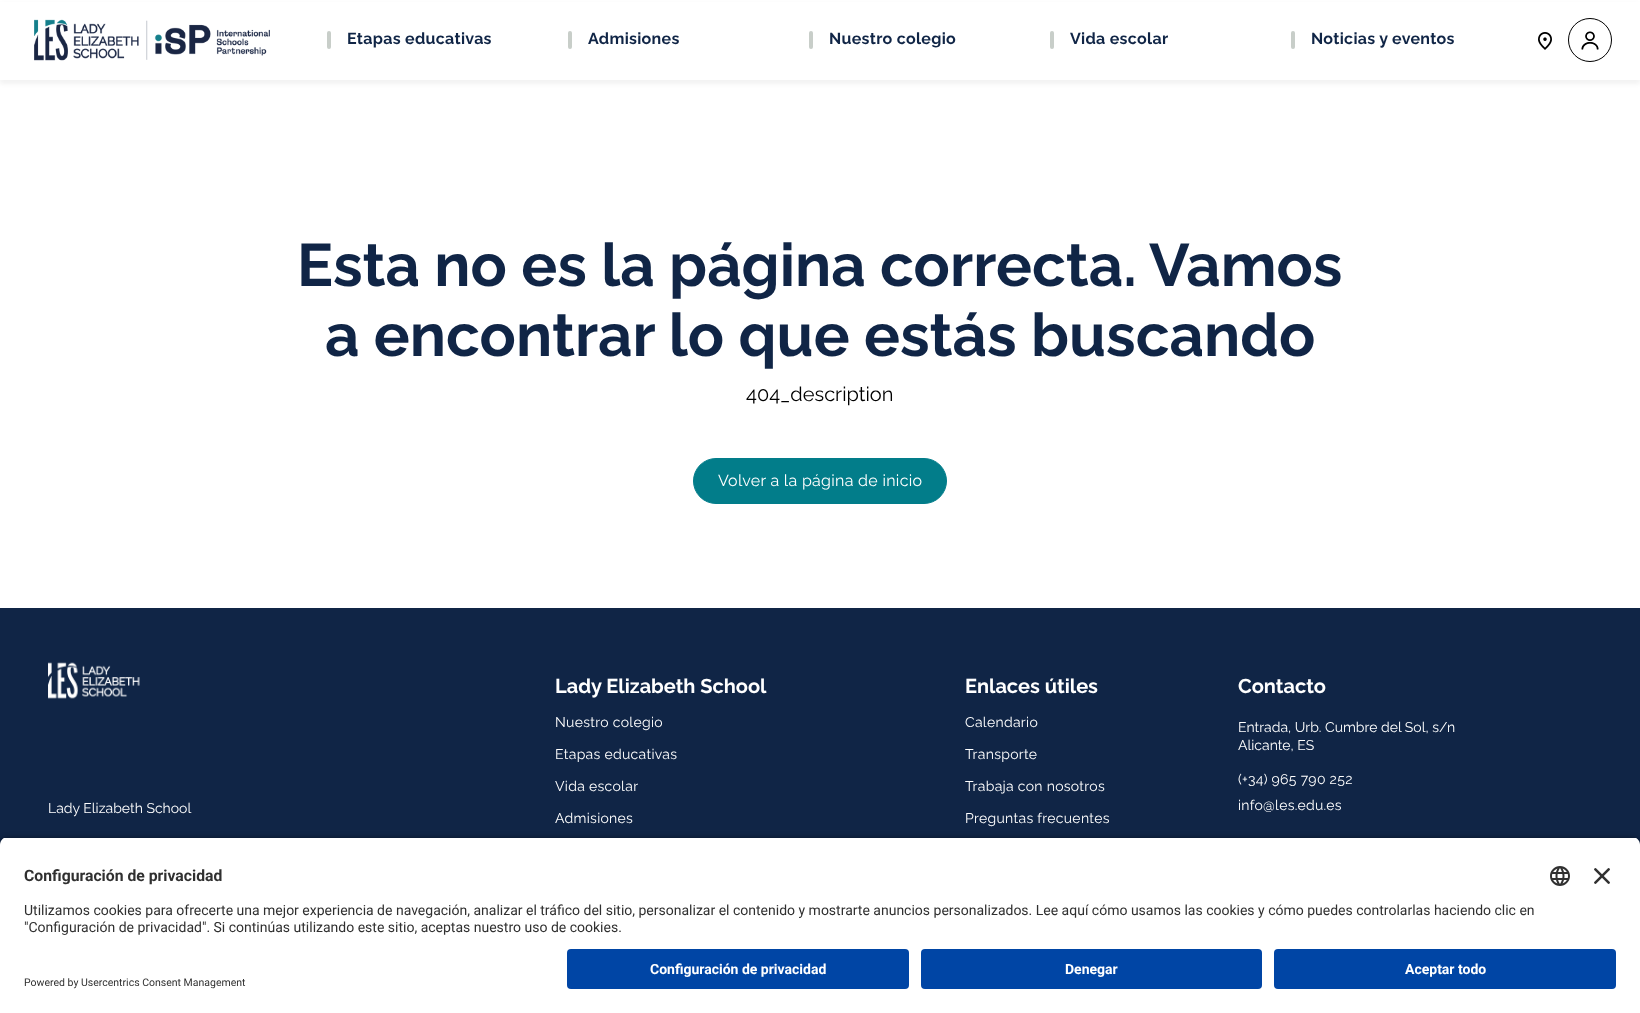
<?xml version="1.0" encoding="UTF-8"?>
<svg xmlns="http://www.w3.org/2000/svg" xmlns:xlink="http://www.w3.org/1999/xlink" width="1640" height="1013">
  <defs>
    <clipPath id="clip1"><path d="M 8 837 h 1624 c 4.5 0 8 3.5 8 8 v 96 h -1640 v -96 c 0 -4.5 3.5 -8 8 -8 z" /></clipPath>
  </defs>
  <rect width="100%" height="100%" fill="#ffffff" />
  <rect y="4" width="1640" height="80" fill="#000000" fill-opacity="0.05" filter="blur(2px)" />
  <rect y="2" width="1640" height="78" fill="#ffffff" />
  <image x="34" y="19" width="236" height="42" xlink:href="image1.png" />
  <rect x="327" y="31" width="4" height="18" rx="2" fill="#c8cec9" />
  <rect x="568" y="31" width="4" height="18" rx="2" fill="#c8cec9" />
  <rect x="809" y="31" width="4" height="18" rx="2" fill="#c8cec9" />
  <rect x="1050" y="31" width="4" height="18" rx="2" fill="#c8cec9" />
  <rect x="1291" y="31" width="4" height="18" rx="2" fill="#c8cec9" />
  <image x="1538" y="32" width="14" height="18" xlink:href="image2.png" />
  <circle cx="1590" cy="40" r="21.5" fill="none" stroke="#000000" />
  <image x="1581" y="31" width="18" height="19" xlink:href="image3.png" />
  <rect x="693.5" y="458.5" width="253" height="45" rx="22.5" fill="#027d8a" stroke="#027d8a" />
  <rect y="608" width="1640" height="237" fill="#102546" />
  <image x="48" y="662" width="92" height="37" xlink:href="image4.png" />
  <rect y="840" width="1640" height="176" rx="8" fill="#000000" fill-opacity="0.8" filter="blur(3.5px)" />
  <g clip-path="url(#clip1)">
    <rect y="838" width="1640" height="103" fill="#ffffff" />
  </g>
  <image x="1550" y="866" width="20" height="20" xlink:href="image5.png" />
  <image x="1594" y="868" width="16" height="16" xlink:href="image6.png" />
  <rect y="941" width="1640" height="72" fill="#ffffff" />
  <rect x="567" y="949" width="342" height="40" rx="4" fill="#0045a5" />
  <rect x="921" y="949" width="341" height="40" rx="4" fill="#0045a5" />
  <rect x="1274" y="949" width="342" height="40" rx="4" fill="#0045a5" />
  <text x="347" y="44" style="font-family: Raleway; font-size: 16px; font-weight: bold; letter-spacing: 0.3px; fill: #102546">Etapas educativas</text>
  <text x="588" y="44" style="font-family: Raleway; font-size: 16px; font-weight: bold; letter-spacing: 0.3px; fill: #102546">Admisiones</text>
  <text x="829" y="44" style="font-family: Raleway; font-size: 16px; font-weight: bold; letter-spacing: 0.3px; fill: #102546">Nuestro colegio</text>
  <text x="1070" y="44" style="font-family: Raleway; font-size: 16px; font-weight: bold; letter-spacing: 0.3px; fill: #102546">Vida escolar</text>
  <text x="1311" y="44" style="font-family: Raleway; font-size: 16px; font-weight: bold; letter-spacing: 0.3px; fill: #102546">Noticias y eventos</text>
  <text x="297" y="286" style="font-family: Raleway; font-size: 60px; font-weight: bold; fill: #102546">Esta no es la página correcta. Vamos</text>
  <text x="325" y="356" style="font-family: Raleway; font-size: 60px; font-weight: bold; fill: #102546">a encontrar lo que estás buscando</text>
  <text x="746" y="401" style="font-family: Raleway; font-size: 20px; fill: #000000">404_description</text>
  <text x="718" y="486" style="font-family: Raleway; font-size: 16px; letter-spacing: 0.3px; fill: #ffffff">Volver a la página de inicio</text>
  <text x="48" y="813" style="font-family: Raleway; font-size: 14px; fill: #ffffff">Lady Elizabeth School</text>
  <text x="555" y="693" style="font-family: Raleway; font-size: 20px; font-weight: bold; fill: #ffffff">Lady Elizabeth School</text>
  <text x="555" y="727" style="font-family: Raleway; font-size: 14px; letter-spacing: 0.3px; fill: #ffffff">Nuestro colegio</text>
  <text x="555" y="759" style="font-family: Raleway; font-size: 14px; letter-spacing: 0.3px; fill: #ffffff">Etapas educativas</text>
  <text x="555" y="791" style="font-family: Raleway; font-size: 14px; letter-spacing: 0.3px; fill: #ffffff">Vida escolar</text>
  <text x="555" y="823" style="font-family: Raleway; font-size: 14px; letter-spacing: 0.3px; fill: #ffffff">Admisiones</text>
  <text x="965" y="693" style="font-family: Raleway; font-size: 20px; font-weight: bold; fill: #ffffff">Enlaces útiles</text>
  <text x="965" y="727" style="font-family: Raleway; font-size: 14px; letter-spacing: 0.3px; fill: #ffffff">Calendario</text>
  <text x="965" y="759" style="font-family: Raleway; font-size: 14px; letter-spacing: 0.3px; fill: #ffffff">Transporte</text>
  <text x="965" y="791" style="font-family: Raleway; font-size: 14px; letter-spacing: 0.3px; fill: #ffffff">Trabaja con nosotros</text>
  <text x="965" y="823" style="font-family: Raleway; font-size: 14px; letter-spacing: 0.3px; fill: #ffffff">Preguntas frecuentes</text>
  <text x="1238" y="693" style="font-family: Raleway; font-size: 20px; font-weight: bold; fill: #ffffff">Contacto</text>
  <text x="1238" y="732" style="font-family: Raleway; font-size: 14px; fill: #ffffff">Entrada, Urb. Cumbre del Sol, s/n</text>
  <text x="1238" y="750" style="font-family: Raleway; font-size: 14px; fill: #ffffff">Alicante, ES</text>
  <text x="1238" y="784" style="font-family: Raleway; font-size: 14px; letter-spacing: 0.3px; fill: #ffffff">(+34) 965 790 252</text>
  <text x="1238" y="810" style="font-family: Raleway; font-size: 14px; letter-spacing: 0.3px; fill: #ffffff">info@les.edu.es</text>
  <text x="24" y="881" style="font-family: Roboto; font-size: 15.75px; font-weight: bold; fill: #303030">Configuración de privacidad</text>
  <text x="24" y="915" style="font-family: Roboto; font-size: 14px; fill: #303030">Utilizamos cookies para ofrecerte una mejor experiencia de navegación, analizar el tráfico del sitio, personalizar el contenido y mostrarte anuncios personalizados. Lee aquí cómo usamos las cookies y cómo puedes controlarlas haciendo clic en</text>
  <text x="24" y="932" style="font-family: Roboto; font-size: 14px; fill: #303030">"Configuración de privacidad". Si continúas utilizando este sitio, aceptas nuestro uso de cookies.</text>
  <text x="650" y="974" style="font-family: Roboto; font-size: 14px; font-weight: bold; fill: #ffffff">Configuración de privacidad</text>
  <text x="1065" y="974" style="font-family: Roboto; font-size: 14px; font-weight: bold; fill: #ffffff">Denegar</text>
  <text x="1405" y="974" style="font-family: Roboto; font-size: 14px; font-weight: bold; fill: #ffffff">Aceptar todo</text>
  <text x="24" y="986" style="font-family: Roboto; font-size: 10.5px; fill: #303030">Powered by Usercentrics Consent Management</text>
</svg>
